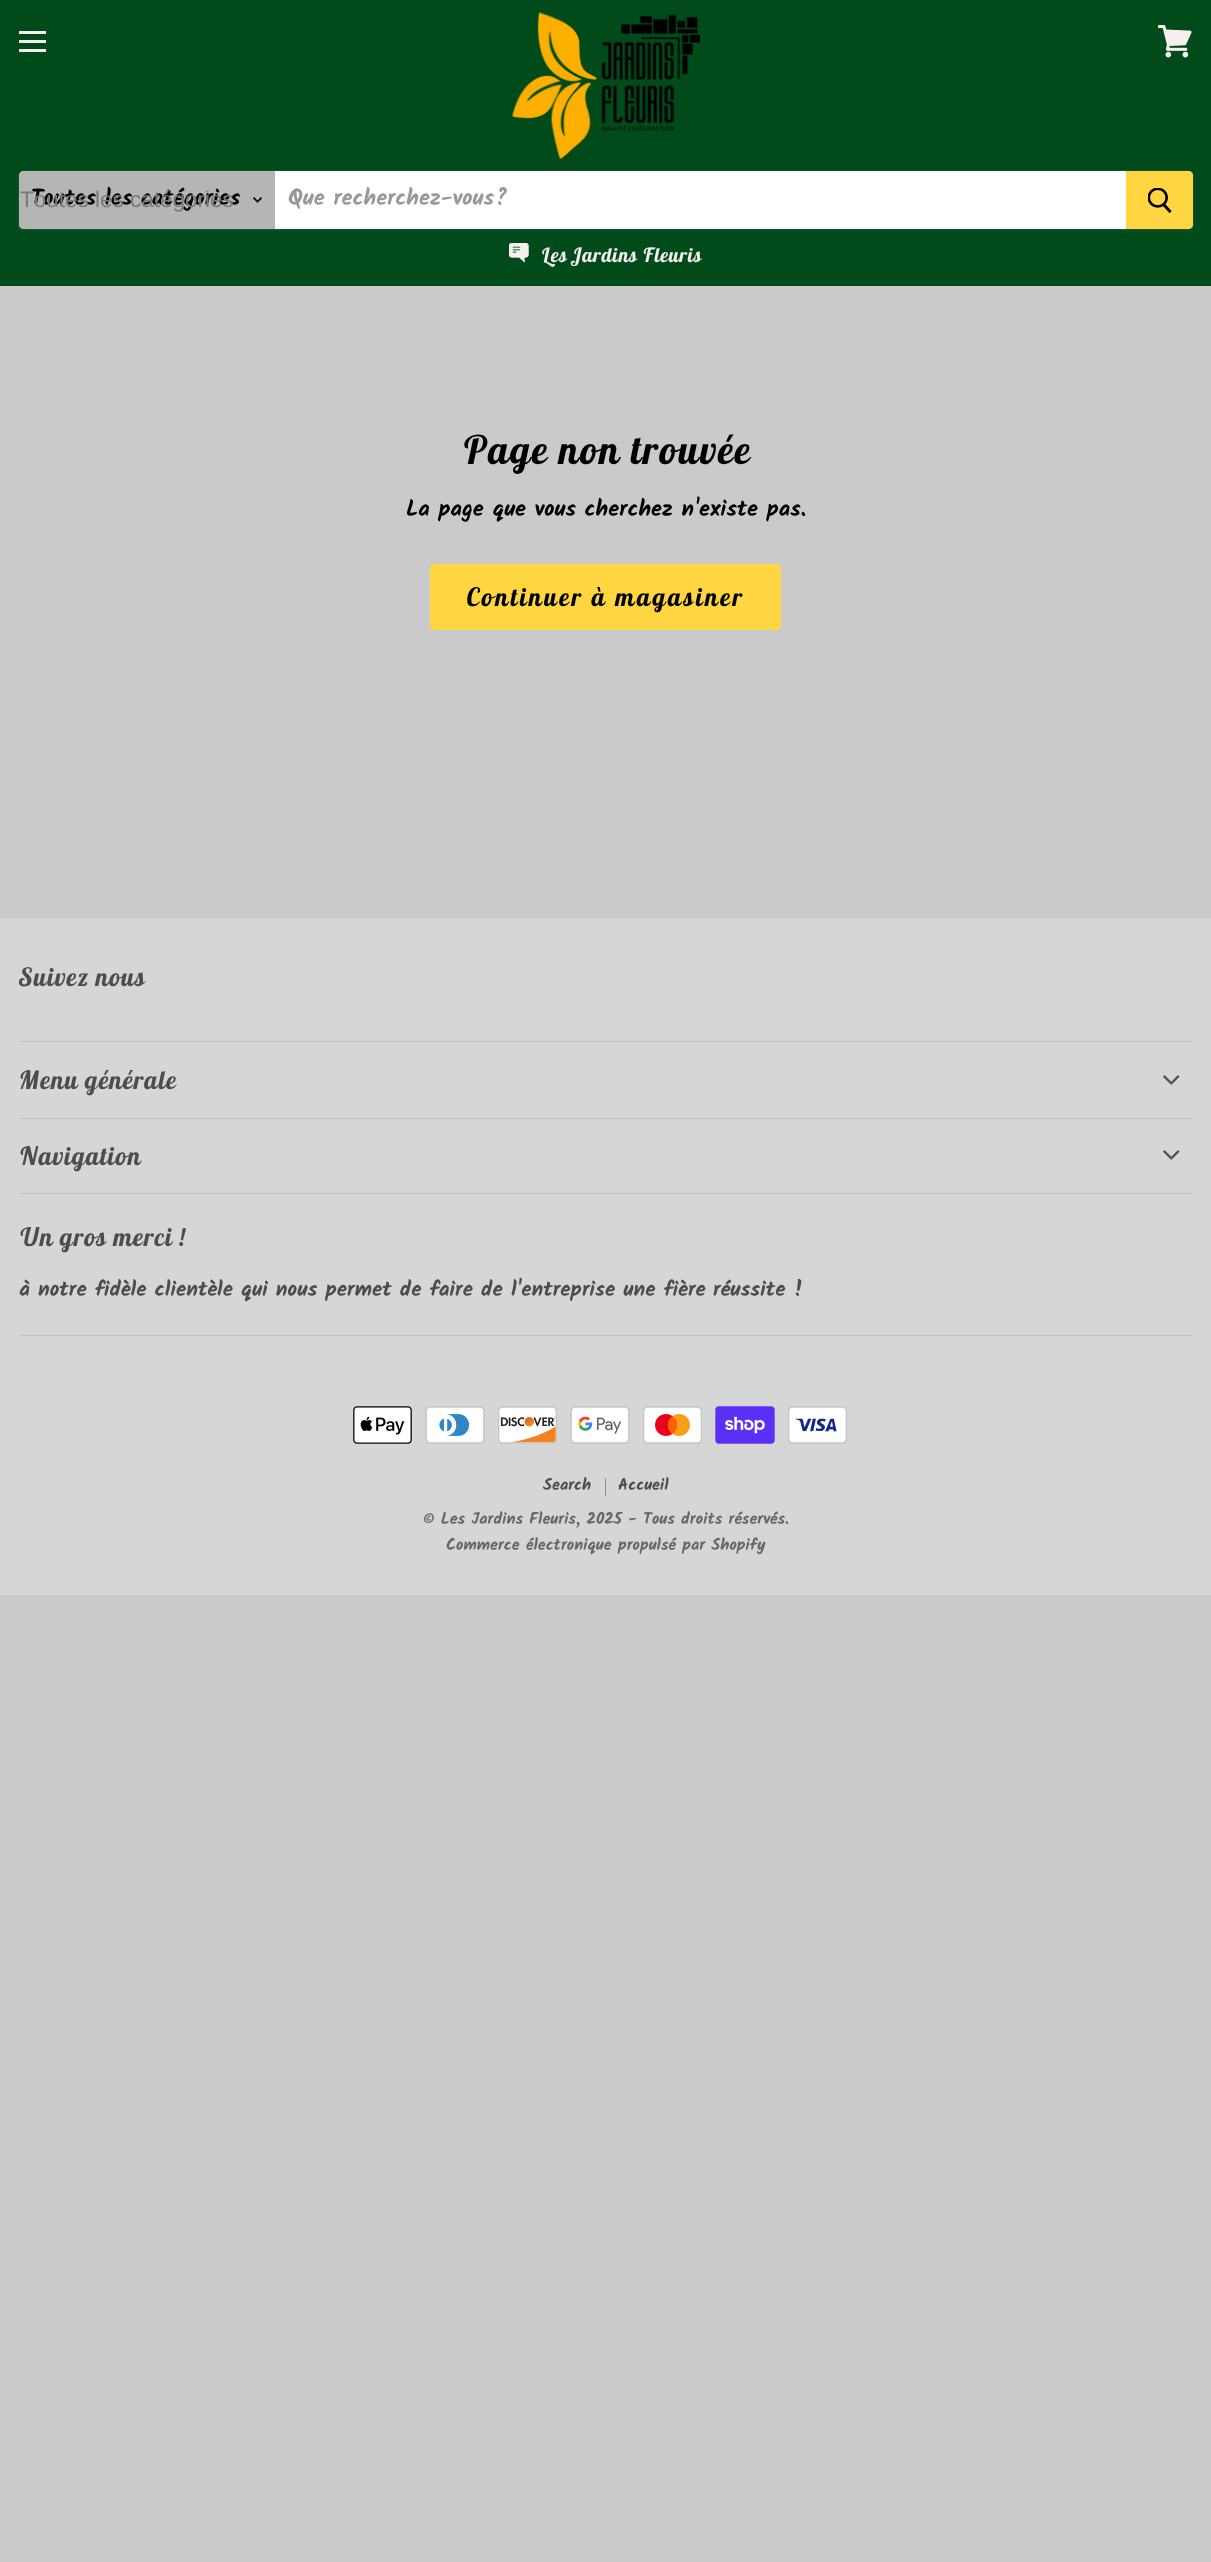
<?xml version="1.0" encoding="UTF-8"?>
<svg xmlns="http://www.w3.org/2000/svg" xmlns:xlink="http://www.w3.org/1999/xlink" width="1211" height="2562">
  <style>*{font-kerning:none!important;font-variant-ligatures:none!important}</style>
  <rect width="100%" height="100%" fill="#cacaca" />
  <rect width="1211" height="286" fill="#004b19" />
  <rect x="19" y="31" width="27" height="3" fill="#f5efef" />
  <rect x="19" y="40" width="27" height="3" fill="#f5efef" />
  <rect x="19" y="49" width="27" height="3" fill="#f5efef" />
  <image x="1158" y="25" width="34" height="33" xlink:href="image1.png" />
  <image x="512" y="12" width="188" height="147" xlink:href="image2.png" />
  <rect x="18" y="173" width="1176" height="60" rx="5" fill="#656565" fill-opacity="0.11" filter="blur(2px)" />
  <rect x="18.5" y="170.5" width="1175" height="59" rx="4.5" fill="none" stroke="#656565" stroke-opacity="0.2" />
  <path d="M 23 171 h 252 v 58 h -252 c -2 0 -4 -2 -4 -4 v -50 c 0 -2 2 -4 4 -4 z" fill="#b5b5b5" />
  <image x="253" y="197" width="9" height="6" xlink:href="image3.png" />
  <rect x="275" y="171" width="851" height="58" fill="#ffffff" />
  <path d="M 1126.5 171.5 h 62.5 c 2 0 3.5 1.5 3.5 3.5 v 50 c 0 2 -1.5 3.5 -3.5 3.5 h -62.5 z" fill="#ffd541" stroke="#ffd541" />
  <image x="1148" y="188" width="24" height="26" xlink:href="image4.png" />
  <image x="509" y="243" width="20" height="20" xlink:href="image5.png" />
  <rect x="430.5" y="564.5" width="350" height="65" rx="3.5" fill="#ffd541" stroke="#ffd541" />
  <rect y="918" width="1211" height="677" fill="#d6d6d6" />
  <rect x="19" y="1041" width="1174" height="1" fill="#c1c1c1" />
  <rect x="19" y="1118" width="1174" height="1" fill="#c1c1c1" />
  <image x="1163" y="1075" width="17" height="10" xlink:href="image6.png" />
  <rect x="19" y="1193" width="1174" height="1" fill="#c1c1c1" />
  <image x="1163" y="1150" width="17" height="10" xlink:href="image6.png" />
  <rect x="19" y="1335" width="1174" height="1" fill="#c1c1c1" />
  <image x="353" y="1406" width="59" height="38" xlink:href="image7.png" />
  <image x="425" y="1406" width="60" height="38" xlink:href="image8.png" />
  <image x="498" y="1406" width="59" height="38" xlink:href="image9.png" />
  <image x="570" y="1406" width="60" height="38" xlink:href="image10.png" />
  <image x="643" y="1406" width="59" height="38" xlink:href="image11.png" />
  <image x="715" y="1406" width="60" height="38" xlink:href="image12.png" />
  <image x="788" y="1406" width="59" height="38" xlink:href="image13.png" />
  <rect x="605" y="1478" width="1" height="18" fill="#929292" />
  <text x="31" y="205" style="font-family: Kalam; font-size: 22.5px; font-weight: bold; fill: #000000">Toutes les catégories</text>
  <text x="20" y="207" style="font-family: Liberation Sans; font-size: 22.5px; fill: #7a7a7a">Toutes les catégories</text>
  <text x="288" y="205" style="font-family: Kalam; font-size: 22.5px; font-weight: bold; fill: #999999">Que recherchez-vous?</text>
  <text x="541" y="262" style="font-family: Lobster Two; font-size: 19.75px; font-weight: bold; font-style: italic; letter-spacing: 0.75px; fill: #f5efef">Les Jardins Fleuris</text>
  <text x="462" y="464" style="font-family: Lobster Two; font-size: 39.5px; font-weight: bold; font-style: italic; letter-spacing: 1.6px; fill: #000000">Page non trouvée</text>
  <text x="406" y="516" style="font-family: Kalam; font-size: 22.5px; font-weight: bold; fill: #000000">La page que vous cherchez n'existe pas.</text>
  <text x="466" y="606" style="font-family: Lobster Two; font-size: 25.25px; font-weight: bold; font-style: italic; letter-spacing: 2.5px; fill: #000000">Continuer à magasiner</text>
  <text x="19" y="986" style="font-family: Lobster Two; font-size: 25.25px; font-weight: bold; font-style: italic; letter-spacing: 1px; fill: #4d4d4d">Suivez nous</text>
  <text x="19" y="1089" style="font-family: Lobster Two; font-size: 25.25px; font-weight: bold; font-style: italic; letter-spacing: 1px; fill: #4d4d4d">Menu générale</text>
  <text x="19" y="1165" style="font-family: Lobster Two; font-size: 25.25px; font-weight: bold; font-style: italic; letter-spacing: 1px; fill: #4d4d4d">Navigation</text>
  <text x="19" y="1246" style="font-family: Lobster Two; font-size: 25.25px; font-weight: bold; font-style: italic; letter-spacing: 1px; fill: #4d4d4d">Un gros merci !</text>
  <text x="19" y="1296" style="font-family: Kalam; font-size: 21.1px; font-weight: bold; fill: #4d4d4d">à notre fidèle clientèle qui nous permet de faire de l'entreprise une fière</text>
  <text x="713" y="1296" style="font-family: Kalam; font-size: 21.1px; font-weight: bold; fill: #4d4d4d">réussite !</text>
  <text x="543" y="1490" style="font-family: Kalam; font-size: 16.25px; font-weight: bold; fill: #4d4d4d">Search</text>
  <text x="618" y="1490" style="font-family: Kalam; font-size: 16.25px; font-weight: bold; fill: #4d4d4d">Accueil</text>
  <text x="423" y="1524" style="font-family: Kalam; font-size: 16.25px; font-weight: bold; fill: #686868">© Les Jardins Fleuris, 2025 - Tous droits réservés.</text>
  <text x="446" y="1550" style="font-family: Kalam; font-size: 16.25px; font-weight: bold; fill: #686868">Commerce électronique propulsé par Shopify</text>
</svg>
